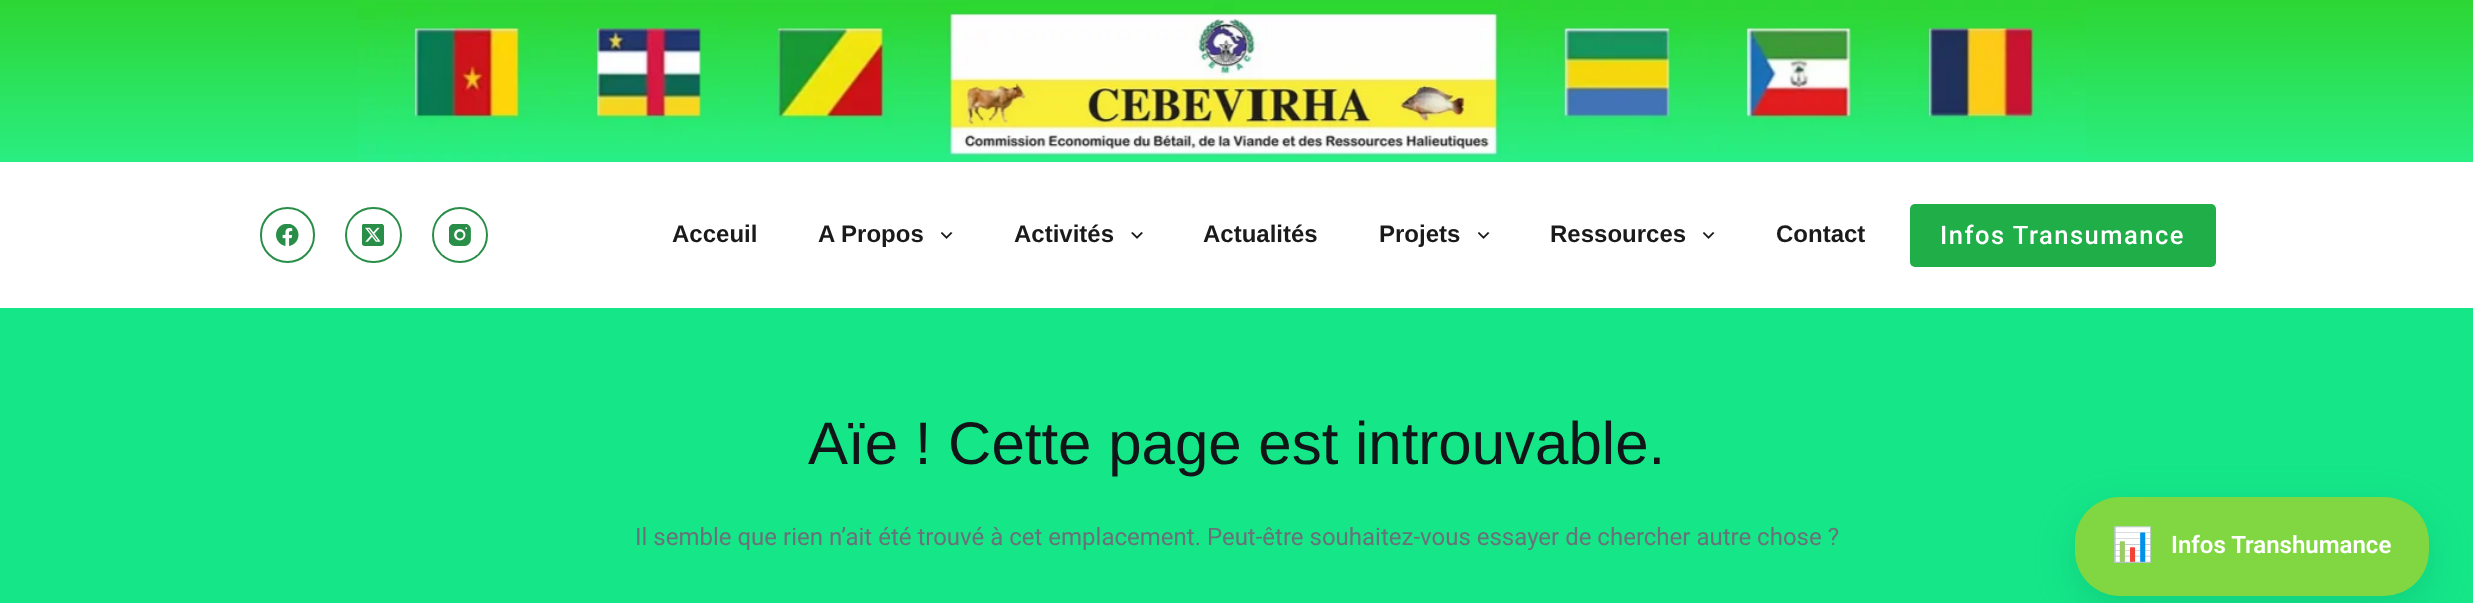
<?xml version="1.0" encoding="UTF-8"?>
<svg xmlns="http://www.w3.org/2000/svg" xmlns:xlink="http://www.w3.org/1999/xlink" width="2473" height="603">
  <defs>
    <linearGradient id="g1" gradientUnits="userSpaceOnUse" x1="1237" y1="0" x2="1237" y2="162"><stop offset="0" stop-color="#2dd633" /><stop offset="1" stop-color="#29ee82" /></linearGradient>
  </defs>
  <rect width="100%" height="100%" fill="#15e788" />
  <rect width="2473" height="162" fill="url(#g1)" />
  <image x="357" y="3" width="1729" height="159" xlink:href="image1.png" />
  <rect y="162" width="2473" height="146" fill="#ffffff" />
  <rect x="261" y="208" width="53" height="54" rx="26.5" fill="none" stroke="#298e48" stroke-width="2" />
  <image x="276" y="224" width="23" height="22" xlink:href="image2.png" />
  <rect x="346" y="208" width="55" height="54" rx="27" fill="none" stroke="#298e48" stroke-width="2" />
  <image x="362" y="224" width="22" height="22" xlink:href="image3.png" />
  <circle cx="460" cy="235" r="27" fill="none" stroke="#298e48" stroke-width="2" />
  <image x="449" y="224" width="22" height="22" xlink:href="image4.png" />
  <image x="941" y="232" width="12" height="7" xlink:href="image5.png" />
  <image x="1131" y="232" width="12" height="7" xlink:href="image6.png" />
  <image x="1478" y="232" width="12" height="7" xlink:href="image5.png" />
  <image x="1703" y="232" width="12" height="7" xlink:href="image5.png" />
  <rect x="1910" y="204" width="306" height="63" rx="5" fill="#1fae48" />
  <rect x="2075" y="509" width="354" height="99" rx="45" fill="#059669" fill-opacity="0.3" filter="blur(19px)" />
  <rect x="2075" y="497" width="354" height="99" rx="45" fill="#81d742" />
  <text x="672" y="242" style="font-family: Liberation Sans; font-size: 24px; font-weight: bold; fill: #1a1a1a">Acceuil</text>
  <text x="818" y="242" style="font-family: Liberation Sans; font-size: 24px; font-weight: bold; fill: #1a1a1a">A Propos</text>
  <text x="1014" y="242" style="font-family: Liberation Sans; font-size: 24px; font-weight: bold; fill: #1a1a1a">Activités</text>
  <text x="1203" y="242" style="font-family: Liberation Sans; font-size: 24px; font-weight: bold; fill: #1a1a1a">Actualités</text>
  <text x="1379" y="242" style="font-family: Liberation Sans; font-size: 24px; font-weight: bold; fill: #1a1a1a">Projets</text>
  <text x="1550" y="242" style="font-family: Liberation Sans; font-size: 24px; font-weight: bold; fill: #1a1a1a">Ressources</text>
  <text x="1776" y="242" style="font-family: Liberation Sans; font-size: 24px; font-weight: bold; fill: #1a1a1a">Contact</text>
  <text x="1940" y="244" style="font-family: Roboto; font-size: 25.5px; font-weight: 500; letter-spacing: 1.5px; fill: #ffffff">Infos Transumance</text>
  <text x="808" y="464" style="font-family: Liberation Sans; font-size: 60px; fill: #111518">Aïe ! Cette page est introuvable.</text>
  <text x="635" y="545" style="font-family: Roboto; font-size: 24px; fill: #687279">Il semble que rien n’ait été trouvé à cet emplacement. Peut-être souhaitez-vous essayer de chercher autre chose ?</text>
  <text x="2112" y="556" style="font-family: Noto Color Emoji; font-size: 33px; font-weight: bold; fill: #ffffff">📊</text>
  <text x="2171" y="553" style="font-family: Roboto; font-size: 24px; font-weight: 600; fill: #ffffff">Infos Transhumance</text>
</svg>
